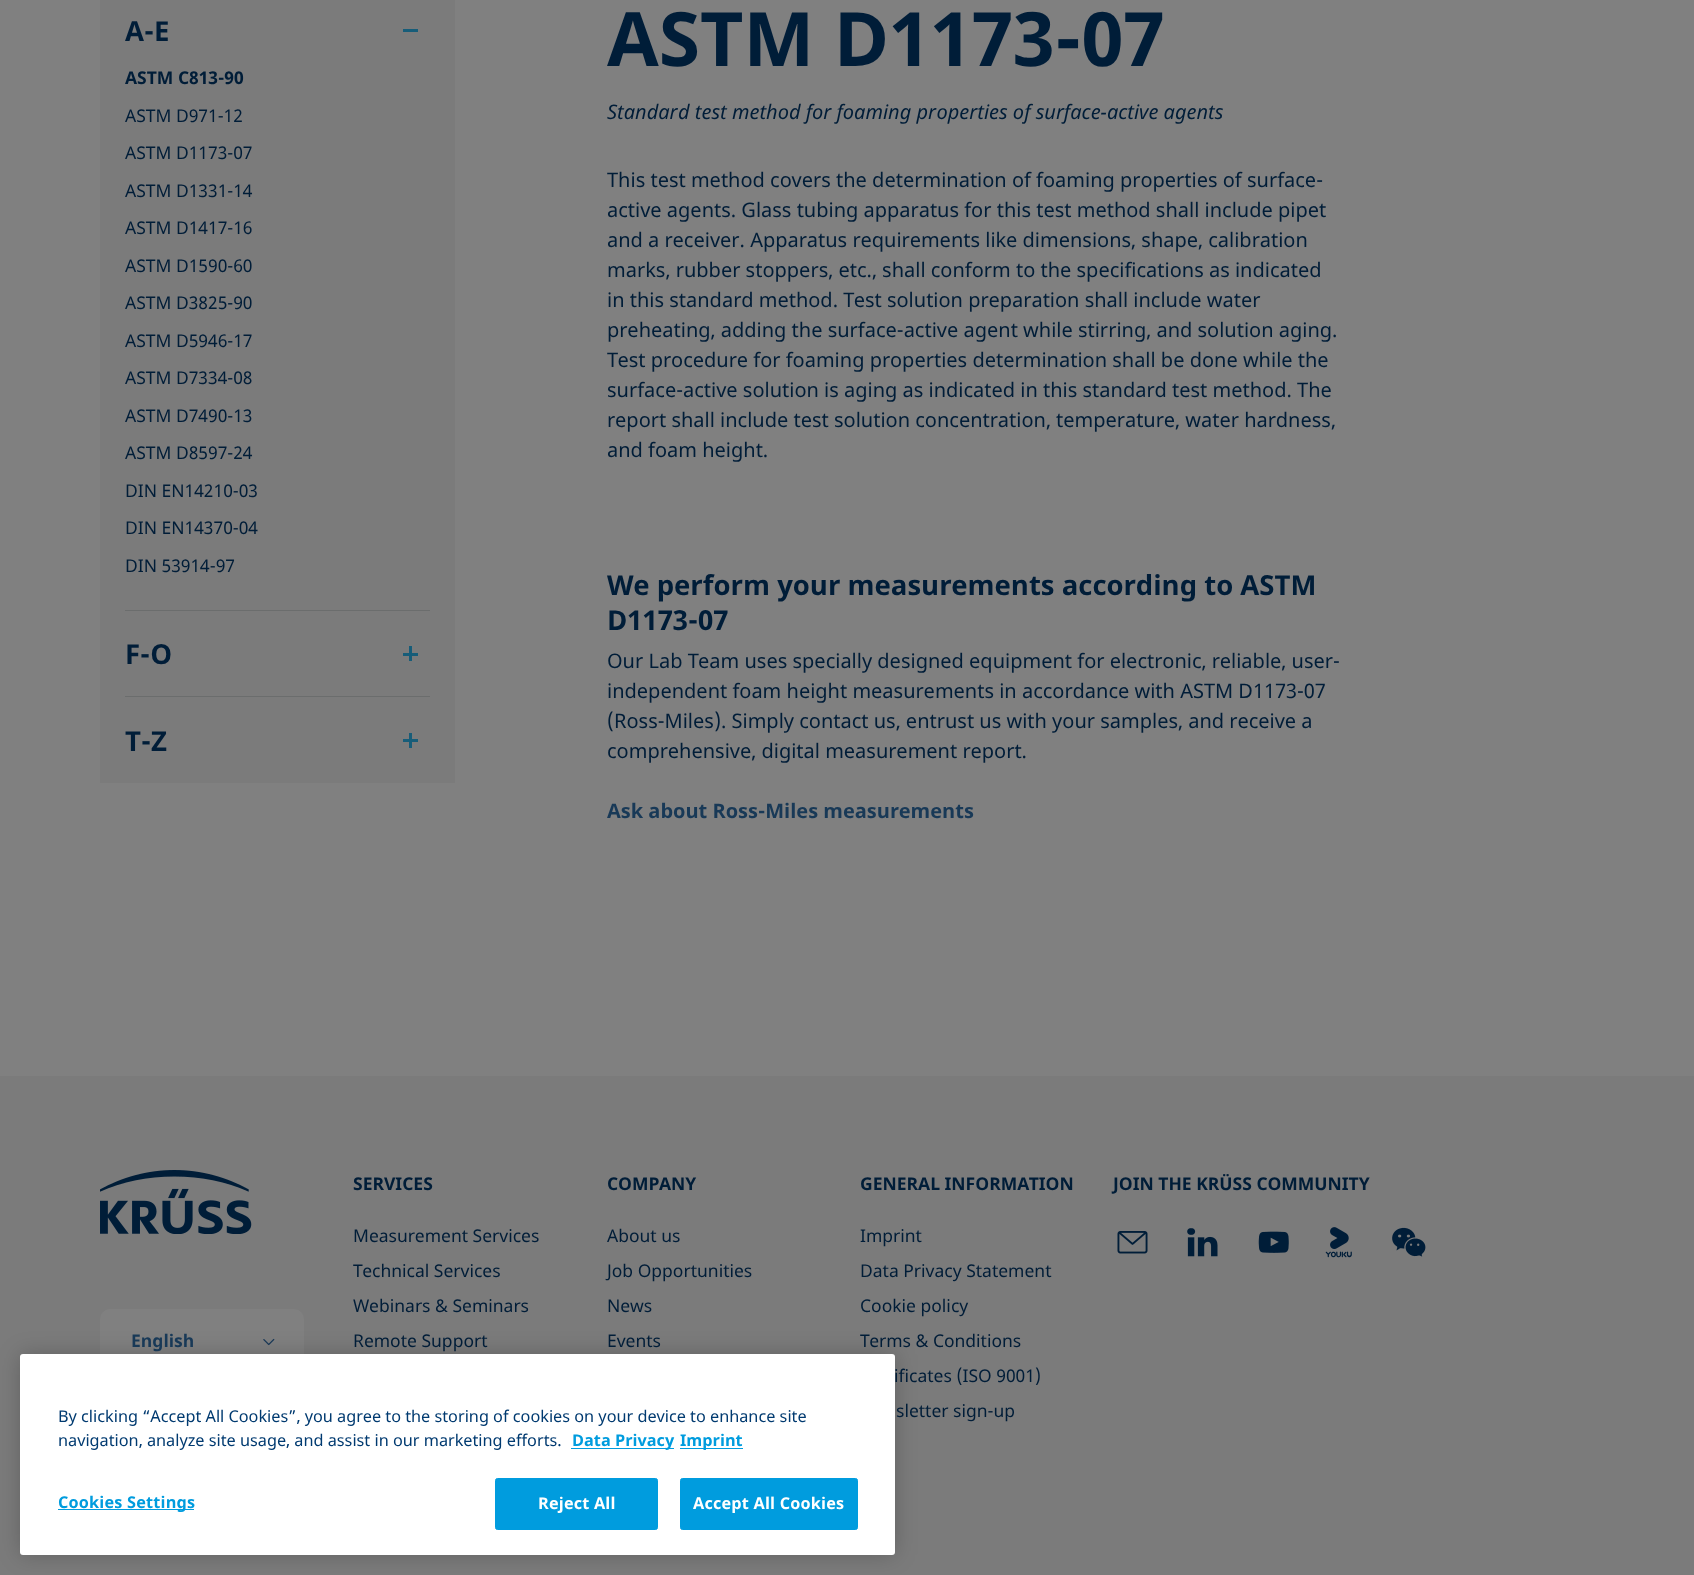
<?xml version="1.0" encoding="UTF-8"?>
<svg xmlns="http://www.w3.org/2000/svg" xmlns:xlink="http://www.w3.org/1999/xlink" width="1694" height="1575">
  <rect width="100%" height="100%" fill="#808080" />
  <rect x="100" width="355" height="783" fill="#7b7b7b" />
  <rect x="403" y="29" width="15" height="3" fill="#175d79" />
  <rect x="125" y="610" width="305" height="1" fill="#6b6d6d" />
  <rect x="403" y="653" width="15" height="3" fill="#175d79" />
  <rect x="409" y="646" width="3" height="15" fill="#175d79" />
  <rect x="125" y="696" width="305" height="1" fill="#6b6d6d" />
  <rect x="403" y="739" width="15" height="3" fill="#175d79" />
  <rect x="409" y="733" width="3" height="15" fill="#175d79" />
  <rect y="1076" width="1694" height="499" fill="#7b7b7b" />
  <image x="100" y="1170" width="152" height="64" xlink:href="image1.png" />
  <rect x="100" y="1309" width="204" height="94" rx="10" fill="#808080" />
  <image x="263" y="1338" width="12" height="8" xlink:href="image2.png" />
  <image x="1117" y="1231" width="31" height="23" xlink:href="image3.png" />
  <image x="1187" y="1228" width="31" height="29" xlink:href="image4.png" />
  <image x="1258" y="1231" width="31" height="22" xlink:href="image5.png" />
  <image x="1325" y="1227" width="27" height="31" xlink:href="image6.png" />
  <image x="1392" y="1227" width="34" height="30" xlink:href="image7.png" />
  <rect x="20" y="1354" width="875" height="201" rx="3" fill="#000000" fill-opacity="0.2" filter="blur(11px)" />
  <rect x="20" y="1354" width="875" height="201" rx="3" fill="#ffffff" />
  <rect x="571" y="1448" width="103" height="1" fill="#009cde" />
  <rect x="680" y="1448" width="63" height="1" fill="#009cde" />
  <rect x="58" y="1509" width="136" height="1" fill="#009cde" />
  <rect x="495.5" y="1478.5" width="162" height="51" rx="2" fill="#009cde" stroke="#009cde" />
  <rect x="680.5" y="1478.5" width="177" height="51" rx="2" fill="#009cde" stroke="#009cde" />
  <text x="125" y="41" style="font-family: Noto Sans; font-size: 27.5px; font-weight: bold; fill: #001d38">A-E</text>
  <text x="125" y="84" style="font-family: Noto Sans; font-size: 17.5px; font-weight: bold; fill: #001d38">ASTM C813-90</text>
  <text x="125" y="122" style="font-family: Noto Sans; font-size: 17.5px; fill: #001d38">ASTM D971-12</text>
  <text x="125" y="159" style="font-family: Noto Sans; font-size: 17.5px; fill: #001d38">ASTM D1173-07</text>
  <text x="125" y="197" style="font-family: Noto Sans; font-size: 17.5px; fill: #001d38">ASTM D1331-14</text>
  <text x="125" y="234" style="font-family: Noto Sans; font-size: 17.5px; fill: #001d38">ASTM D1417-16</text>
  <text x="125" y="272" style="font-family: Noto Sans; font-size: 17.5px; fill: #001d38">ASTM D1590-60</text>
  <text x="125" y="309" style="font-family: Noto Sans; font-size: 17.5px; fill: #001d38">ASTM D3825-90</text>
  <text x="125" y="347" style="font-family: Noto Sans; font-size: 17.5px; fill: #001d38">ASTM D5946-17</text>
  <text x="125" y="384" style="font-family: Noto Sans; font-size: 17.5px; fill: #001d38">ASTM D7334-08</text>
  <text x="125" y="422" style="font-family: Noto Sans; font-size: 17.5px; fill: #001d38">ASTM D7490-13</text>
  <text x="125" y="459" style="font-family: Noto Sans; font-size: 17.5px; fill: #001d38">ASTM D8597-24</text>
  <text x="125" y="497" style="font-family: Noto Sans; font-size: 17.5px; fill: #001d38">DIN EN14210-03</text>
  <text x="125" y="534" style="font-family: Noto Sans; font-size: 17.5px; fill: #001d38">DIN EN14370-04</text>
  <text x="125" y="572" style="font-family: Noto Sans; font-size: 17.5px; fill: #001d38">DIN 53914-97</text>
  <text x="125" y="664" style="font-family: Noto Sans; font-size: 27.5px; font-weight: bold; fill: #001d38">F-O</text>
  <text x="125" y="751" style="font-family: Noto Sans; font-size: 27.5px; font-weight: bold; fill: #001d38">T-Z</text>
  <text x="607" y="66" style="font-family: Noto Sans; font-size: 75px; font-weight: bold; fill: #001d38">ASTM D1173-07</text>
  <text x="607" y="119" style="font-family: Noto Sans; font-size: 20px; font-style: italic; fill: #001d38">Standard test method for foaming properties of surface-active agents</text>
  <text x="607" y="187" style="font-family: Noto Sans; font-size: 20px; fill: #001d38">This test method covers the determination of foaming properties of surface-</text>
  <text x="607" y="217" style="font-family: Noto Sans; font-size: 20px; fill: #001d38">active agents. Glass tubing apparatus for this test method shall include pipet</text>
  <text x="607" y="247" style="font-family: Noto Sans; font-size: 20px; fill: #001d38">and a receiver. Apparatus requirements like dimensions, shape, calibration</text>
  <text x="607" y="277" style="font-family: Noto Sans; font-size: 20px; fill: #001d38">marks, rubber stoppers, etc., shall conform to the specifications as indicated</text>
  <text x="607" y="307" style="font-family: Noto Sans; font-size: 20px; fill: #001d38">in this standard method. Test solution preparation shall include water</text>
  <text x="607" y="337" style="font-family: Noto Sans; font-size: 20px; fill: #001d38">preheating, adding the surface-active agent while stirring, and solution aging.</text>
  <text x="607" y="367" style="font-family: Noto Sans; font-size: 20px; fill: #001d38">Test procedure for foaming properties determination shall be done while the</text>
  <text x="607" y="397" style="font-family: Noto Sans; font-size: 20px; fill: #001d38">surface-active solution is aging as indicated in this standard test method. The</text>
  <text x="607" y="427" style="font-family: Noto Sans; font-size: 20px; fill: #001d38">report shall include test solution concentration, temperature, water hardness,</text>
  <text x="607" y="457" style="font-family: Noto Sans; font-size: 20px; fill: #001d38">and foam height.</text>
  <text x="607" y="595" style="font-family: Noto Sans; font-size: 27.5px; font-weight: bold; fill: #001d38">We perform your measurements according to ASTM</text>
  <text x="607" y="630" style="font-family: Noto Sans; font-size: 27.5px; font-weight: bold; fill: #001d38">D1173-07</text>
  <text x="607" y="668" style="font-family: Noto Sans; font-size: 20px; fill: #001d38">Our Lab Team uses specially designed equipment for electronic, reliable, user-</text>
  <text x="607" y="698" style="font-family: Noto Sans; font-size: 20px; fill: #001d38">independent foam height measurements in accordance with ASTM D1173-07</text>
  <text x="607" y="728" style="font-family: Noto Sans; font-size: 20px; fill: #001d38">(Ross-Miles). Simply contact us, entrust us with your samples, and receive a</text>
  <text x="607" y="758" style="font-family: Noto Sans; font-size: 20px; fill: #001d38">comprehensive, digital measurement report.</text>
  <text x="607" y="818" style="font-family: Noto Sans; font-size: 20px; font-weight: bold; fill: #183957">Ask about Ross-Miles measurements</text>
  <text x="131" y="1347" style="font-family: Noto Sans; font-size: 17.5px; font-weight: bold; fill: #183957">English</text>
  <text x="353" y="1190" style="font-family: Noto Sans; font-size: 17.5px; font-weight: bold; fill: #001d38">SERVICES</text>
  <text x="353" y="1242" style="font-family: Noto Sans; font-size: 17.5px; fill: #001d38">Measurement Services</text>
  <text x="353" y="1277" style="font-family: Noto Sans; font-size: 17.5px; fill: #001d38">Technical Services</text>
  <text x="353" y="1312" style="font-family: Noto Sans; font-size: 17.5px; fill: #001d38">Webinars &amp; Seminars</text>
  <text x="353" y="1347" style="font-family: Noto Sans; font-size: 17.5px; fill: #001d38">Remote Support</text>
  <text x="607" y="1190" style="font-family: Noto Sans; font-size: 17.5px; font-weight: bold; fill: #001d38">COMPANY</text>
  <text x="607" y="1242" style="font-family: Noto Sans; font-size: 17.5px; fill: #001d38">About us</text>
  <text x="607" y="1277" style="font-family: Noto Sans; font-size: 17.5px; fill: #001d38">Job Opportunities</text>
  <text x="607" y="1312" style="font-family: Noto Sans; font-size: 17.5px; fill: #001d38">News</text>
  <text x="607" y="1347" style="font-family: Noto Sans; font-size: 17.5px; fill: #001d38">Events</text>
  <text x="860" y="1190" style="font-family: Noto Sans; font-size: 17.5px; font-weight: bold; fill: #001d38">GENERAL INFORMATION</text>
  <text x="860" y="1242" style="font-family: Noto Sans; font-size: 17.5px; fill: #001d38">Imprint</text>
  <text x="860" y="1277" style="font-family: Noto Sans; font-size: 17.5px; fill: #001d38">Data Privacy Statement</text>
  <text x="860" y="1312" style="font-family: Noto Sans; font-size: 17.5px; fill: #001d38">Cookie policy</text>
  <text x="860" y="1347" style="font-family: Noto Sans; font-size: 17.5px; fill: #001d38">Terms &amp; Conditions</text>
  <text x="894" y="1382" style="font-family: Noto Sans; font-size: 17.5px; fill: #001d38">ificates (ISO 9001)</text>
  <text x="896" y="1417" style="font-family: Noto Sans; font-size: 17.5px; fill: #001d38">sletter sign-up</text>
  <text x="1113" y="1190" style="font-family: Noto Sans; font-size: 17.5px; font-weight: bold; fill: #001d38">JOIN THE KRÜSS COMMUNITY</text>
  <text x="58" y="1422" style="font-family: Noto Sans; font-size: 16.25px; fill: #003a70">By clicking “Accept All Cookies”, you agree to the storing of cookies on your device to enhance site</text>
  <text x="58" y="1446" style="font-family: Noto Sans; font-size: 16.25px; fill: #003a70">navigation, analyze site usage, and assist in our marketing efforts.</text>
  <text x="572" y="1446" style="font-family: Noto Sans; font-size: 16.25px; font-weight: bold; fill: #009cde">Data Privacy</text>
  <text x="680" y="1446" style="font-family: Noto Sans; font-size: 16.25px; font-weight: bold; fill: #009cde">Imprint</text>
  <text x="58" y="1508" style="font-family: Noto Sans; font-size: 16.25px; font-weight: bold; letter-spacing: 0.2px; fill: #009cde">Cookies Settings</text>
  <text x="538" y="1509" style="font-family: Noto Sans; font-size: 16.25px; font-weight: bold; letter-spacing: 0.2px; fill: #ffffff">Reject All</text>
  <text x="693" y="1509" style="font-family: Noto Sans; font-size: 16.25px; font-weight: bold; letter-spacing: 0.2px; fill: #ffffff">Accept All Cookies</text>
</svg>
